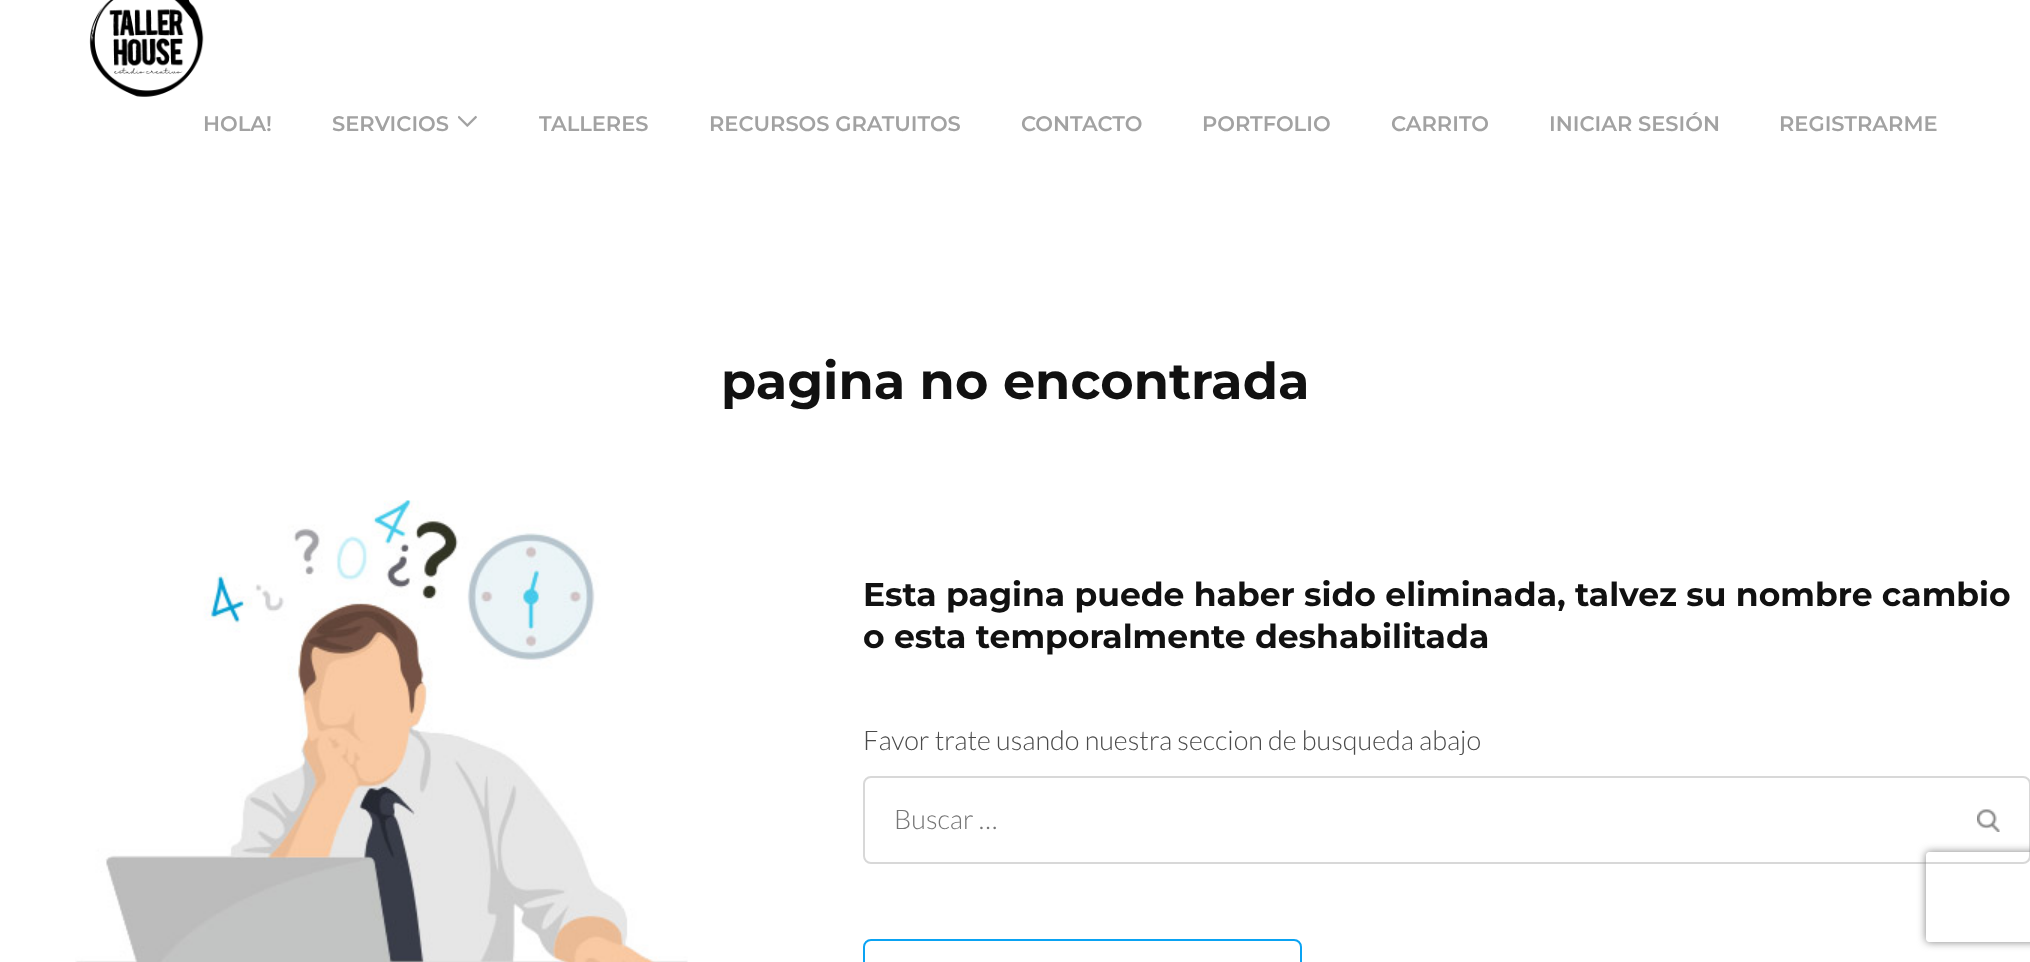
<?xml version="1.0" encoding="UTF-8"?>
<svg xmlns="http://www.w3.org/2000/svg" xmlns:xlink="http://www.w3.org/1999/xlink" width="2030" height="962">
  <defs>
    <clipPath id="clip1"><path d="M 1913 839 h 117 v 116 h -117 z m 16 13 h 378 c 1.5 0 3 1.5 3 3 v 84 c 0 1.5 -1.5 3 -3 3 h -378 c -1.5 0 -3 -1.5 -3 -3 v -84 c 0 -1.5 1.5 -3 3 -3 z" clip-rule="evenodd" /></clipPath>
  </defs>
  <rect width="100%" height="100%" fill="#ffffff" />
  <image x="89" y="0" width="115" height="97" xlink:href="image1.png" />
  <image x="458" y="115" width="19" height="12" xlink:href="image2.png" />
  <image x="75" y="500" width="613" height="462" xlink:href="image3.png" />
  <rect x="864" y="777" width="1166" height="86" rx="7" fill="none" stroke="#d8d8d8" stroke-width="2" />
  <image x="1977" y="809" width="23" height="23" xlink:href="image4.png" />
  <rect x="864" y="940" width="437" height="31" rx="7" fill="none" stroke="#0aa3f3" stroke-width="2" />
  <g clip-path="url(#clip1)">
    <rect x="1926" y="852" width="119" height="90" rx="3" fill="#808080" filter="blur(4px)" />
  </g>
  <text x="203" y="131" style="font-family: Montserrat; font-size: 21px; font-weight: 600; fill: #a2a2a2">HOLA!</text>
  <text x="332" y="131" style="font-family: Montserrat; font-size: 21px; font-weight: 600; fill: #a2a2a2">SERVICIOS</text>
  <text x="539" y="131" style="font-family: Montserrat; font-size: 21px; font-weight: 600; fill: #a2a2a2">TALLERES</text>
  <text x="709" y="131" style="font-family: Montserrat; font-size: 21px; font-weight: 600; fill: #a2a2a2">RECURSOS GRATUITOS</text>
  <text x="1021" y="131" style="font-family: Montserrat; font-size: 21px; font-weight: 600; fill: #a2a2a2">CONTACTO</text>
  <text x="1202" y="131" style="font-family: Montserrat; font-size: 21px; font-weight: 600; fill: #a2a2a2">PORTFOLIO</text>
  <text x="1391" y="131" style="font-family: Montserrat; font-size: 21px; font-weight: 600; fill: #a2a2a2">CARRITO</text>
  <text x="1549" y="131" style="font-family: Montserrat; font-size: 21px; font-weight: 600; fill: #a2a2a2">INICIAR SESIÓN</text>
  <text x="1779" y="131" style="font-family: Montserrat; font-size: 21px; font-weight: 600; fill: #a2a2a2">REGISTRARME</text>
  <text x="721" y="399" style="font-family: Montserrat; font-size: 51px; font-weight: bold; fill: #111111">pagina no encontrada</text>
  <text x="863" y="606" style="font-family: Montserrat; font-size: 33px; font-weight: bold; fill: #111111">Esta pagina puede haber sido eliminada, talvez su nombre cambio</text>
  <text x="863" y="648" style="font-family: Montserrat; font-size: 33px; font-weight: bold; fill: #111111">o esta temporalmente deshabilitada</text>
  <text x="863" y="750" style="font-family: Lato; font-size: 27px; font-weight: 300; fill: #4a4a4a">Favor trate usando nuestra seccion de busqueda abajo</text>
  <text x="894" y="829" style="font-family: Lato; font-size: 27px; font-weight: 300; fill: #757575">Buscar …</text>
</svg>
